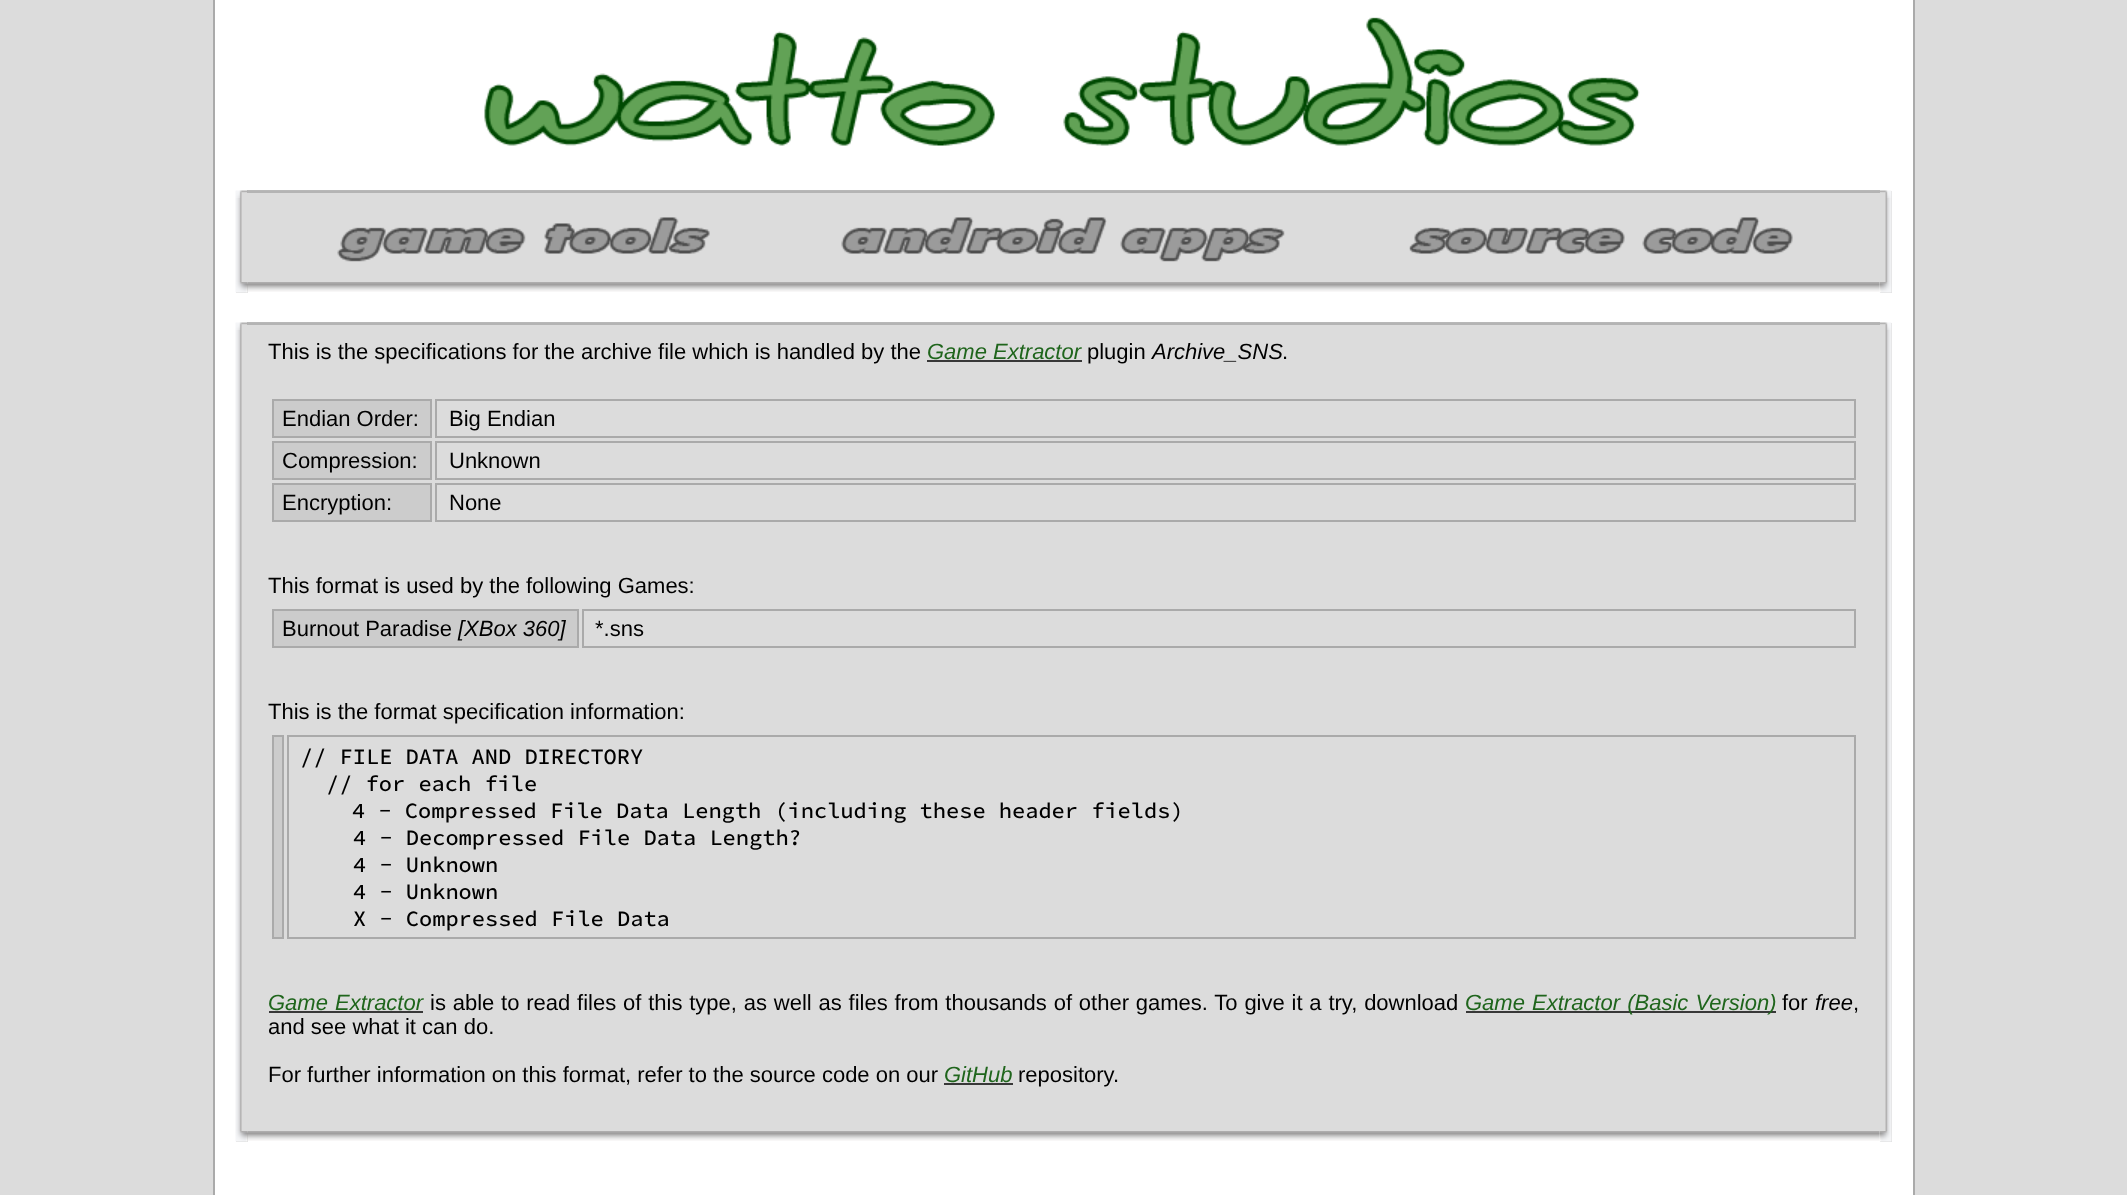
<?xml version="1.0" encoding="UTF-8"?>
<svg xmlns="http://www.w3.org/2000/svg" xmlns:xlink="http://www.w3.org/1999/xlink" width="2127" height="1195">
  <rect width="100%" height="100%" fill="#dcdcdc" />
  <rect x="215" width="1698" height="1195" fill="#ffffff" />
  <rect x="1913" width="2" height="1195" fill="#aaaaaa" />
  <rect x="213" width="2" height="1195" fill="#aaaaaa" />
  <image x="484" y="17" width="1156" height="129" xlink:href="image1.png" />
  <rect x="236" y="191" width="1656" height="7" fill="#dcdcdc" />
  <image x="235" y="190" width="13" height="8" xlink:href="image2.png" />
  <rect x="247" y="190" width="1633" height="3" fill="#aeadad" fill-opacity="0.87" />
  <image x="1880" y="190" width="12" height="8" xlink:href="image3.png" />
  <rect x="241" y="198" width="1651" height="84" fill="#dcdcdc" />
  <image x="235" y="198" width="7" height="84" xlink:href="image4.png" />
  <image x="337" y="227" width="189" height="35" xlink:href="image5.png" />
  <image x="544" y="217" width="166" height="37" xlink:href="image6.png" />
  <image x="841" y="217" width="266" height="37" xlink:href="image7.png" />
  <image x="1120" y="227" width="165" height="35" xlink:href="image8.png" />
  <image x="1409" y="227" width="216" height="27" xlink:href="image9.png" />
  <image x="1642" y="217" width="151" height="37" xlink:href="image10.png" />
  <image x="1885" y="198" width="7" height="84" xlink:href="image11.png" />
  <rect x="236" y="282" width="12" height="11" fill="#dcdcdc" />
  <image x="235" y="282" width="13" height="11" xlink:href="image12.png" />
  <image x="247" y="282" width="1633" height="10" xlink:href="image13.png" />
  <rect x="1880" y="282" width="12" height="11" fill="#dcdcdc" />
  <image x="1879" y="282" width="13" height="11" xlink:href="image14.png" />
  <rect x="236" y="323" width="1656" height="7" fill="#dcdcdc" />
  <image x="235" y="322" width="13" height="8" xlink:href="image2.png" />
  <rect x="247" y="322" width="1633" height="3" fill="#aeadad" fill-opacity="0.87" />
  <image x="1880" y="322" width="12" height="8" xlink:href="image3.png" />
  <rect x="241" y="330" width="1651" height="801" fill="#dcdcdc" />
  <image x="235" y="330" width="7" height="801" xlink:href="image15.png" />
  <rect x="927" y="360" width="155" height="2" fill="#383838" />
  <rect x="273" y="400" width="158" height="37" fill="#cccccc" stroke="#aaaaaa" stroke-width="2" />
  <rect x="436" y="400" width="1419" height="37" fill="none" stroke="#aaaaaa" stroke-width="2" />
  <rect x="273" y="442" width="158" height="37" fill="#cccccc" stroke="#aaaaaa" stroke-width="2" />
  <rect x="436" y="442" width="1419" height="37" fill="none" stroke="#aaaaaa" stroke-width="2" />
  <rect x="273" y="484" width="158" height="37" fill="#cccccc" stroke="#aaaaaa" stroke-width="2" />
  <rect x="436" y="484" width="1419" height="37" fill="none" stroke="#aaaaaa" stroke-width="2" />
  <rect x="273" y="610" width="305" height="37" fill="#cccccc" stroke="#aaaaaa" stroke-width="2" />
  <rect x="583" y="610" width="1272" height="37" fill="none" stroke="#aaaaaa" stroke-width="2" />
  <rect x="273" y="736" width="10" height="202" fill="#cccccc" stroke="#aaaaaa" stroke-width="2" />
  <rect x="288" y="736" width="1567" height="202" fill="none" stroke="#aaaaaa" stroke-width="2" />
  <rect x="269" y="1011" width="154" height="2" fill="#383838" />
  <rect x="1466" y="1011" width="310" height="2" fill="#383838" />
  <rect x="944" y="1083" width="69" height="2" fill="#383838" />
  <image x="1885" y="330" width="7" height="801" xlink:href="image16.png" />
  <rect x="236" y="1131" width="12" height="11" fill="#dcdcdc" />
  <image x="235" y="1131" width="13" height="11" xlink:href="image12.png" />
  <image x="247" y="1131" width="1633" height="10" xlink:href="image13.png" />
  <rect x="1880" y="1131" width="12" height="11" fill="#dcdcdc" />
  <image x="1879" y="1131" width="13" height="11" xlink:href="image14.png" />
  <text x="268" y="359" style="font-family: Liberation Sans; font-size: 22px; fill: #000000">This is the specifications for the archive file which is handled by the</text>
  <text x="927" y="359" style="font-family: Liberation Sans; font-size: 22px; font-style: italic; fill: #1f651c">Game Extractor</text>
  <text x="1087" y="359" style="font-family: Liberation Sans; font-size: 22px; fill: #000000">plugin</text>
  <text x="1152" y="359" style="font-family: Liberation Sans; font-size: 22px; font-style: italic; fill: #000000">Archive_SNS</text>
  <text x="1282" y="359" style="font-family: Liberation Sans; font-size: 22px; fill: #000000">.</text>
  <text x="282" y="426" style="font-family: Liberation Sans; font-size: 22px; fill: #000000">Endian Order:</text>
  <text x="449" y="426" style="font-family: Liberation Sans; font-size: 22px; fill: #000000">Big Endian</text>
  <text x="282" y="468" style="font-family: Liberation Sans; font-size: 22px; fill: #000000">Compression:</text>
  <text x="449" y="468" style="font-family: Liberation Sans; font-size: 22px; fill: #000000">Unknown</text>
  <text x="282" y="510" style="font-family: Liberation Sans; font-size: 22px; fill: #000000">Encryption:</text>
  <text x="449" y="510" style="font-family: Liberation Sans; font-size: 22px; fill: #000000">None</text>
  <text x="268" y="593" style="font-family: Liberation Sans; font-size: 22px; fill: #000000">This format is used by the following Games:</text>
  <text x="282" y="636" style="font-family: Liberation Sans; font-size: 22px; fill: #000000">Burnout Paradise</text>
  <text x="458" y="636" style="font-family: Liberation Sans; font-size: 22px; font-style: italic; fill: #000000">[XBox 360]</text>
  <text x="595" y="636" style="font-family: Liberation Sans; font-size: 22px; fill: #000000">*.sns</text>
  <text x="268" y="719" style="font-family: Liberation Sans; font-size: 22px; fill: #000000">This is the format specification information:</text>
  <text x="300" y="764" style="font-family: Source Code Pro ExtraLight; font-size: 22px; font-weight: 200; fill: #000000">// FILE DATA AND DIRECTORY</text>
  <text x="326" y="791" style="font-family: Source Code Pro ExtraLight; font-size: 22px; font-weight: 200; fill: #000000">// for each file</text>
  <text x="352" y="818" style="font-family: Source Code Pro ExtraLight; font-size: 22px; font-weight: 200; fill: #000000">4 - Compressed File Data Length (including these header fields)</text>
  <text x="353" y="845" style="font-family: Source Code Pro ExtraLight; font-size: 22px; font-weight: 200; fill: #000000">4 - Decompressed File Data Length?</text>
  <text x="353" y="872" style="font-family: Source Code Pro ExtraLight; font-size: 22px; font-weight: 200; fill: #000000">4 - Unknown</text>
  <text x="353" y="899" style="font-family: Source Code Pro ExtraLight; font-size: 22px; font-weight: 200; fill: #000000">4 - Unknown</text>
  <text x="353" y="926" style="font-family: Source Code Pro ExtraLight; font-size: 22px; font-weight: 200; fill: #000000">X - Compressed File Data</text>
  <text x="268" y="1010" word-spacing="1" style="font-family: Liberation Sans; font-size: 22px; font-style: italic; fill: #1f651c">Game Extractor</text>
  <text x="430" y="1010" word-spacing="0.7" style="font-family: Liberation Sans; font-size: 22px; fill: #000000">is able to read files of this type, as well as files from thousands of other games. To give it a try, download</text>
  <text x="1465" y="1010" word-spacing="1" style="font-family: Liberation Sans; font-size: 22px; font-style: italic; fill: #1f651c">Game Extractor (Basic Version)</text>
  <text x="1782" y="1010" style="font-family: Liberation Sans; font-size: 22px; fill: #000000">for</text>
  <text x="1815" y="1010" style="font-family: Liberation Sans; font-size: 22px; font-style: italic; fill: #000000">free</text>
  <text x="1853" y="1010" style="font-family: Liberation Sans; font-size: 22px; fill: #000000">,</text>
  <text x="268" y="1034" style="font-family: Liberation Sans; font-size: 22px; fill: #000000">and see what it can do.</text>
  <text x="268" y="1082" style="font-family: Liberation Sans; font-size: 22px; fill: #000000">For further information on this format, refer to the source code on our</text>
  <text x="944" y="1082" style="font-family: Liberation Sans; font-size: 22px; font-style: italic; fill: #1f651c">GitHub</text>
  <text x="1018" y="1082" style="font-family: Liberation Sans; font-size: 22px; fill: #000000">repository.</text>
</svg>
